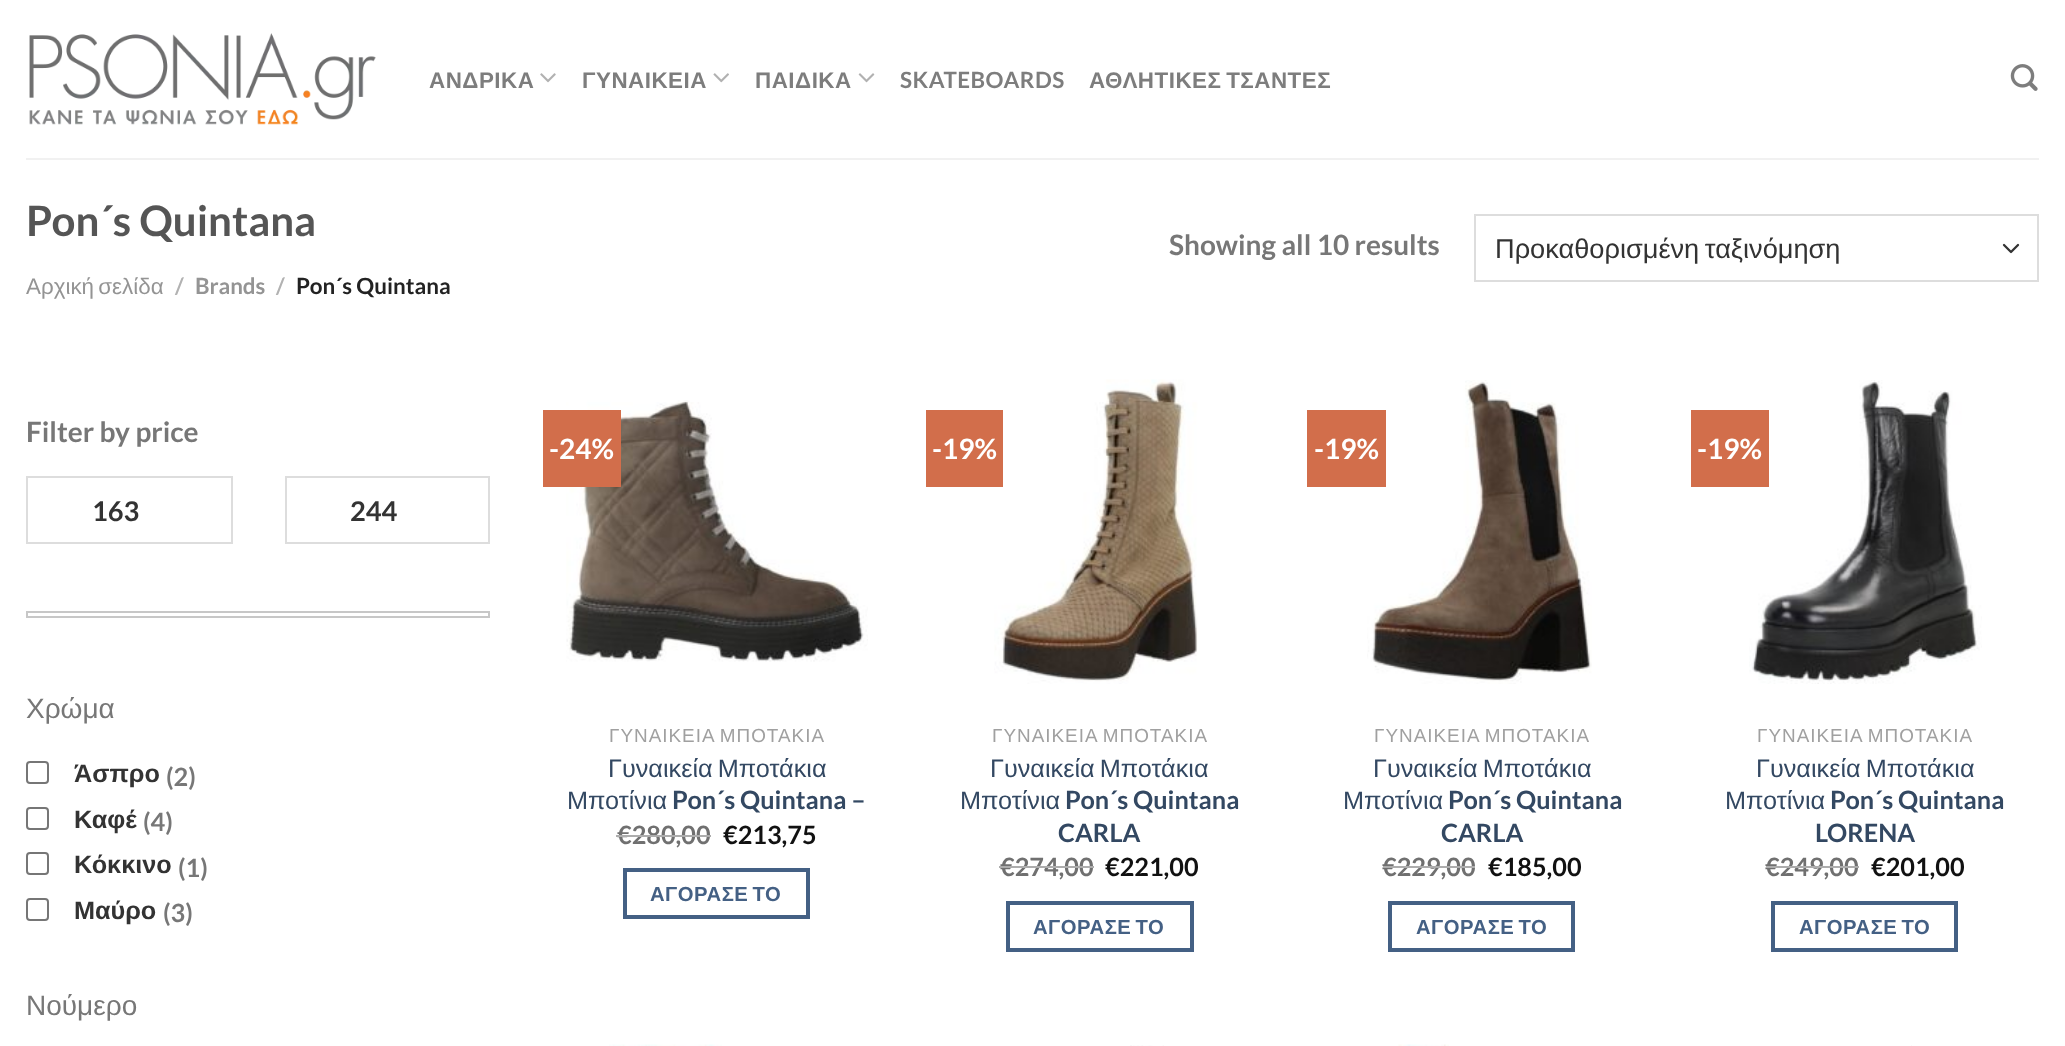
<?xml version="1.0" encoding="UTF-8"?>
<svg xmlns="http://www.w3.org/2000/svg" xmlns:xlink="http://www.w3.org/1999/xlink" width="2065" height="1046">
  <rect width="100%" height="100%" fill="#ffffff" />
  <image x="29" y="33" width="347" height="92" xlink:href="image1.png" />
  <image x="540" y="73" width="16" height="10" xlink:href="image2.png" />
  <image x="713" y="73" width="16" height="10" xlink:href="image3.png" />
  <image x="858" y="73" width="17" height="10" xlink:href="image4.png" />
  <image x="2010" y="64" width="28" height="27" xlink:href="image5.png" />
  <rect x="26" y="158" width="2013" height="2" fill="#f1f1f1" />
  <path d="M 2004 245 l 7 7 l 7 -7" fill="none" stroke="#333333" stroke-width="2.3" stroke-linecap="round" stroke-linejoin="round" />
  <rect x="1475" y="215" width="563" height="66" fill="none" stroke="#dddddd" stroke-width="2" />
  <rect x="27" y="477" width="205" height="66" fill="none" stroke="#dddddd" stroke-width="2" />
  <rect x="286" y="477" width="203" height="66" fill="none" stroke="#dddddd" stroke-width="2" />
  <rect x="27" y="612" width="462" height="5" fill="none" stroke="#c7c7c7" stroke-width="2" />
  <rect x="27" y="762" width="21" height="21" rx="3" fill="none" stroke="#767676" stroke-width="2" />
  <rect x="27" y="808" width="21" height="21" rx="3" fill="none" stroke="#767676" stroke-width="2" />
  <rect x="27" y="853" width="21" height="21" rx="3" fill="none" stroke="#767676" stroke-width="2" />
  <rect x="27" y="899" width="21" height="21" rx="3" fill="none" stroke="#767676" stroke-width="2" />
  <image x="566" y="400" width="302" height="262" xlink:href="image6.png" />
  <rect x="543" y="410" width="78" height="77" fill="#d26e4b" />
  <rect x="625" y="870" width="183" height="47" fill="none" stroke="#446084" stroke-width="4" />
  <image x="994" y="379" width="204" height="305" xlink:href="image7.png" />
  <rect x="926" y="410" width="77" height="77" fill="#d26e4b" />
  <rect x="1008" y="903" width="184" height="47" fill="none" stroke="#446084" stroke-width="4" />
  <image x="1367" y="380" width="225" height="304" xlink:href="image8.png" />
  <rect x="1307" y="410" width="79" height="77" fill="#d26e4b" />
  <rect x="1390" y="903" width="183" height="47" fill="none" stroke="#446084" stroke-width="4" />
  <image x="1749" y="380" width="233" height="304" xlink:href="image9.png" />
  <rect x="1691" y="410" width="78" height="77" fill="#d26e4b" />
  <rect x="1773" y="903" width="183" height="47" fill="none" stroke="#446084" stroke-width="4" />
  <image x="609" y="1044" width="113" height="2" xlink:href="image10.png" />
  <image x="1130" y="1045" width="34" height="1" xlink:href="image11.png" />
  <image x="1398" y="1044" width="51" height="2" xlink:href="image12.png" />
  <rect x="1911" y="1045" width="1" height="1" fill="#fafafa" />
  <text x="429" y="88" style="font-family: Liberation Sans; font-size: 22.4px; font-weight: bold; letter-spacing: 0.5px; fill: #7d7d7d">ΑΝΔΡΙΚΑ</text>
  <text x="582" y="88" style="font-family: Liberation Sans; font-size: 22.4px; font-weight: bold; letter-spacing: 0.5px; fill: #7d7d7d">ΓΥΝΑΙΚΕΙΑ</text>
  <text x="755" y="88" style="font-family: Liberation Sans; font-size: 22.4px; font-weight: bold; letter-spacing: 0.5px; fill: #7d7d7d">ΠΑΙΔΙΚΑ</text>
  <text x="900" y="88" style="font-family: Lato; font-size: 22.4px; font-weight: bold; letter-spacing: 0.5px; fill: #7d7d7d">SKATEBOARDS</text>
  <text x="1089" y="88" word-spacing="-2" style="font-family: Liberation Sans; font-size: 22.4px; font-weight: bold; letter-spacing: 0.5px; fill: #7d7d7d">ΑΘΛΗΤΙΚΕΣ ΤΣΑΝΤΕΣ</text>
  <text x="26" y="236" style="font-family: Lato; font-size: 42px; font-weight: bold; fill: #555555">Pon´s Quintana</text>
  <text x="26" y="294" word-spacing="-2" style="font-family: Liberation Sans; font-size: 22.4px; fill: #949494">Αρχική σελίδα</text>
  <text x="175" y="294" style="font-family: Lato; font-size: 22.4px; font-weight: bold; fill: #b2b2b2">/</text>
  <text x="195" y="294" style="font-family: Lato; font-size: 22.4px; font-weight: bold; fill: #949494">Brands</text>
  <text x="276" y="294" style="font-family: Lato; font-size: 22.4px; font-weight: bold; fill: #b2b2b2">/</text>
  <text x="296" y="294" style="font-family: Lato; font-size: 22.4px; font-weight: bold; fill: #222222">Pon´s Quintana</text>
  <text x="1169" y="255" style="font-family: Lato; font-size: 28px; font-weight: bold; fill: #777777">Showing all 10 results</text>
  <text x="1495" y="258" word-spacing="-2" style="font-family: Liberation Sans; font-size: 27.2px; fill: #333333">Προκαθορισμένη ταξινόμηση</text>
  <text x="26" y="442" style="font-family: Lato; font-size: 28px; font-weight: bold; fill: #777777">Filter by price</text>
  <text x="92" y="521" style="font-family: Lato; font-size: 27.2px; font-weight: bold; fill: #333333">163</text>
  <text x="350" y="521" style="font-family: Lato; font-size: 27.2px; font-weight: bold; fill: #333333">244</text>
  <text x="26" y="718" style="font-family: Liberation Sans; font-size: 28px; fill: #777777">Χρώμα</text>
  <text x="74" y="782" style="font-family: Liberation Sans; font-size: 25.25px; font-weight: bold; fill: #333333">Άσπρο</text>
  <text x="166" y="786" style="font-family: Lato; font-size: 25.25px; font-weight: bold; fill: #777777">(2)</text>
  <text x="74" y="828" style="font-family: Liberation Sans; font-size: 25.25px; font-weight: bold; fill: #333333">Καφέ</text>
  <text x="143" y="831" style="font-family: Lato; font-size: 25.25px; font-weight: bold; fill: #777777">(4)</text>
  <text x="74" y="873" style="font-family: Liberation Sans; font-size: 25.25px; font-weight: bold; fill: #333333">Κόκκινο</text>
  <text x="178" y="877" style="font-family: Lato; font-size: 25.25px; font-weight: bold; fill: #777777">(1)</text>
  <text x="74" y="919" style="font-family: Liberation Sans; font-size: 25.25px; font-weight: bold; fill: #333333">Μαύρο</text>
  <text x="163" y="922" style="font-family: Lato; font-size: 25.25px; font-weight: bold; fill: #777777">(3)</text>
  <text x="26" y="1015" style="font-family: Liberation Sans; font-size: 28px; fill: #777777">Νούμερο</text>
  <text x="549" y="459" style="font-family: Lato; font-size: 28px; font-weight: bold; fill: #ffffff">-24%</text>
  <text x="609" y="742" word-spacing="-1" style="font-family: Liberation Sans; font-size: 18.9px; letter-spacing: 1px; fill: #a0a0a0">ΓΥΝΑΙΚΕΙΑ ΜΠΟΤΑΚΙΑ</text>
  <text x="608" y="777" word-spacing="-2" style="font-family: Liberation Sans; font-size: 25.25px; fill: #334862">Γυναικεία Μποτάκια</text>
  <text x="567" y="809" style="font-family: Liberation Sans; font-size: 25.25px; fill: #334862">Μποτίνια</text>
  <text x="672" y="809" style="font-family: Lato; font-size: 25.25px; font-weight: bold; fill: #334862">Pon´s Quintana –</text>
  <text x="617" y="844" style="font-family: Lato; font-size: 25.25px; font-weight: bold; fill: #707070">€280,00</text>
  <rect x="616" y="835" width="95" height="2" fill="#adadad" />
  <text x="723" y="844" style="font-family: Lato; font-size: 25.25px; font-weight: bold; fill: #111111">€213,75</text>
  <text x="650" y="901" word-spacing="-2" style="font-family: Liberation Sans; font-size: 20.25px; font-weight: bold; letter-spacing: 0.5px; fill: #446084">ΑΓΟΡΑΣΕ ΤΟ</text>
  <text x="932" y="459" style="font-family: Lato; font-size: 28px; font-weight: bold; fill: #ffffff">-19%</text>
  <text x="992" y="742" word-spacing="-1" style="font-family: Liberation Sans; font-size: 18.9px; letter-spacing: 1px; fill: #a0a0a0">ΓΥΝΑΙΚΕΙΑ ΜΠΟΤΑΚΙΑ</text>
  <text x="990" y="777" word-spacing="-2" style="font-family: Liberation Sans; font-size: 25.25px; fill: #334862">Γυναικεία Μποτάκια</text>
  <text x="960" y="809" style="font-family: Liberation Sans; font-size: 25.25px; fill: #334862">Μποτίνια</text>
  <text x="1065" y="809" style="font-family: Lato; font-size: 25.25px; font-weight: bold; fill: #334862">Pon´s Quintana</text>
  <text x="1058" y="842" style="font-family: Lato; font-size: 25.25px; font-weight: bold; fill: #334862">CARLA</text>
  <text x="1000" y="876" style="font-family: Lato; font-size: 25.25px; font-weight: bold; fill: #707070">€274,00</text>
  <rect x="999" y="866" width="95" height="2" fill="#adadad" />
  <text x="1105" y="876" style="font-family: Lato; font-size: 25.25px; font-weight: bold; fill: #111111">€221,00</text>
  <text x="1033" y="934" word-spacing="-2" style="font-family: Liberation Sans; font-size: 20.25px; font-weight: bold; letter-spacing: 0.5px; fill: #446084">ΑΓΟΡΑΣΕ ΤΟ</text>
  <text x="1314" y="459" style="font-family: Lato; font-size: 28px; font-weight: bold; fill: #ffffff">-19%</text>
  <text x="1374" y="742" word-spacing="-1" style="font-family: Liberation Sans; font-size: 18.9px; letter-spacing: 1px; fill: #a0a0a0">ΓΥΝΑΙΚΕΙΑ ΜΠΟΤΑΚΙΑ</text>
  <text x="1373" y="777" word-spacing="-2" style="font-family: Liberation Sans; font-size: 25.25px; fill: #334862">Γυναικεία Μποτάκια</text>
  <text x="1343" y="809" style="font-family: Liberation Sans; font-size: 25.25px; fill: #334862">Μποτίνια</text>
  <text x="1448" y="809" style="font-family: Lato; font-size: 25.25px; font-weight: bold; fill: #334862">Pon´s Quintana</text>
  <text x="1441" y="842" style="font-family: Lato; font-size: 25.25px; font-weight: bold; fill: #334862">CARLA</text>
  <text x="1382" y="876" style="font-family: Lato; font-size: 25.25px; font-weight: bold; fill: #707070">€229,00</text>
  <rect x="1383" y="866" width="92" height="2" fill="#adadad" />
  <text x="1488" y="876" style="font-family: Lato; font-size: 25.25px; font-weight: bold; fill: #111111">€185,00</text>
  <text x="1416" y="934" word-spacing="-2" style="font-family: Liberation Sans; font-size: 20.25px; font-weight: bold; letter-spacing: 0.5px; fill: #446084">ΑΓΟΡΑΣΕ ΤΟ</text>
  <text x="1697" y="459" style="font-family: Lato; font-size: 28px; font-weight: bold; fill: #ffffff">-19%</text>
  <text x="1757" y="742" word-spacing="-1" style="font-family: Liberation Sans; font-size: 18.9px; letter-spacing: 1px; fill: #a0a0a0">ΓΥΝΑΙΚΕΙΑ ΜΠΟΤΑΚΙΑ</text>
  <text x="1756" y="777" word-spacing="-2" style="font-family: Liberation Sans; font-size: 25.25px; fill: #334862">Γυναικεία Μποτάκια</text>
  <text x="1725" y="809" style="font-family: Liberation Sans; font-size: 25.25px; fill: #334862">Μποτίνια</text>
  <text x="1830" y="809" style="font-family: Lato; font-size: 25.25px; font-weight: bold; fill: #334862">Pon´s Quintana</text>
  <text x="1815" y="842" style="font-family: Lato; font-size: 25.25px; font-weight: bold; fill: #334862">LORENA</text>
  <text x="1765" y="876" style="font-family: Lato; font-size: 25.25px; font-weight: bold; fill: #707070">€249,00</text>
  <rect x="1766" y="866" width="93" height="2" fill="#adadad" />
  <text x="1871" y="876" style="font-family: Lato; font-size: 25.25px; font-weight: bold; fill: #111111">€201,00</text>
  <text x="1799" y="934" word-spacing="-2" style="font-family: Liberation Sans; font-size: 20.25px; font-weight: bold; letter-spacing: 0.5px; fill: #446084">ΑΓΟΡΑΣΕ ΤΟ</text>
</svg>
